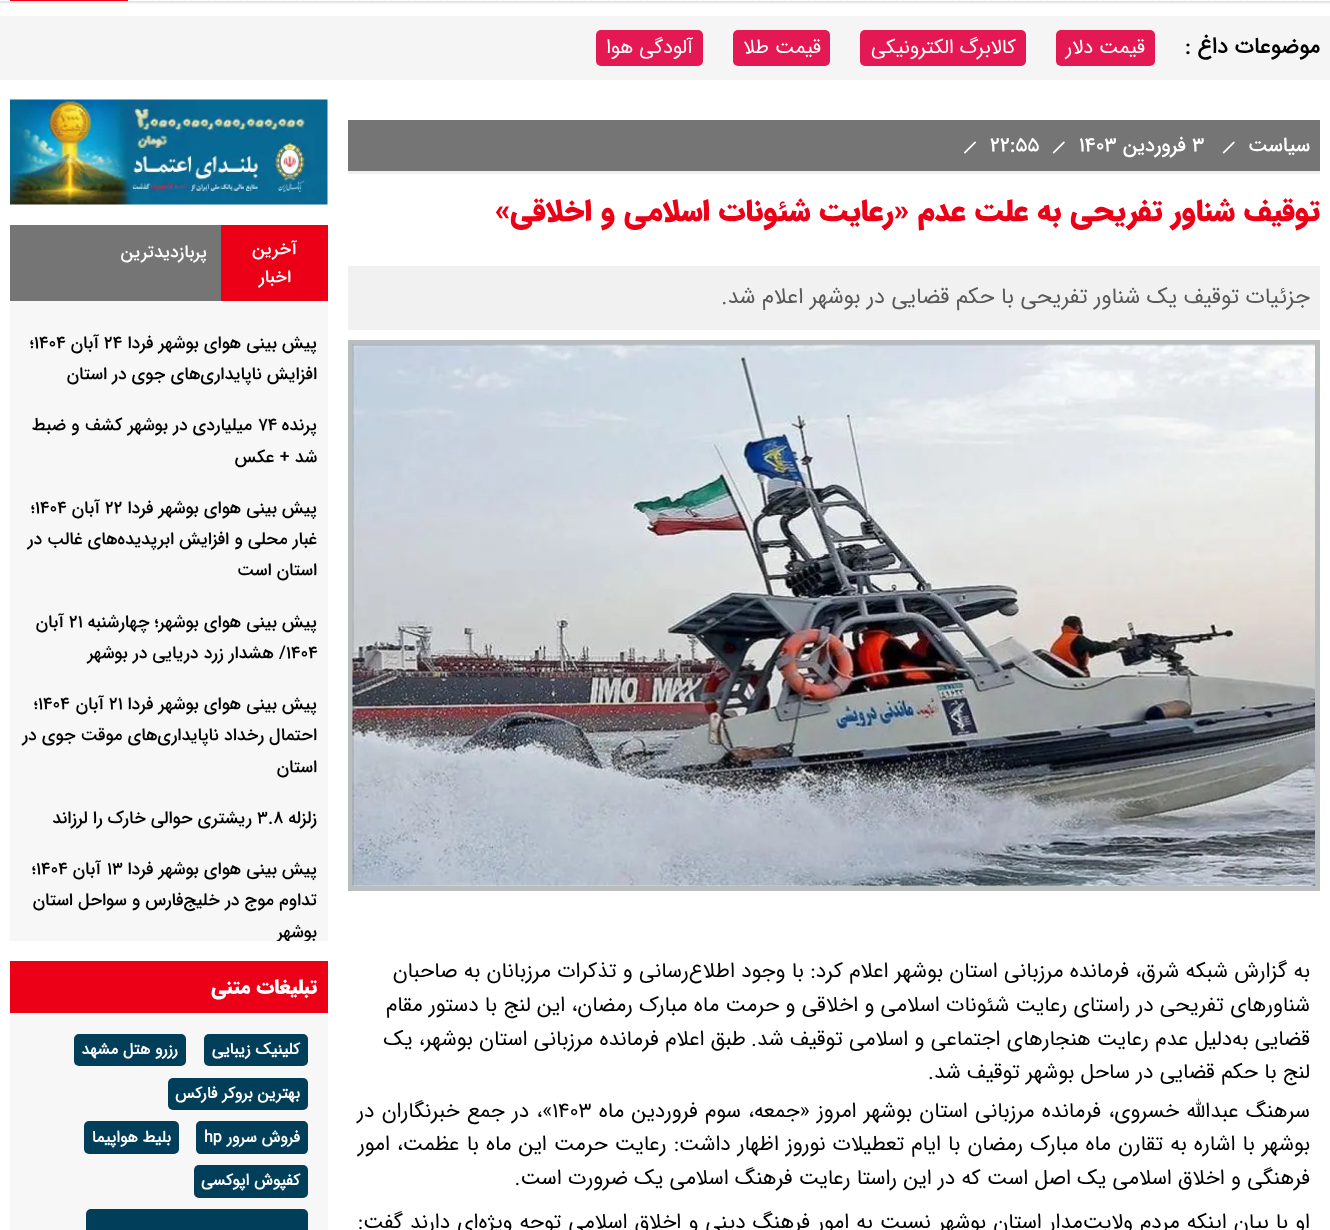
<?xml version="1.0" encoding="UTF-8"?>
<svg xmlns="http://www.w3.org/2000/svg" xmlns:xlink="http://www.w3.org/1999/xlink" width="1330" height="1230">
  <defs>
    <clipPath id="clip1"><rect x="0" y="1" width="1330" height="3" /></clipPath>
    <clipPath id="clip2"><rect x="10" y="316" width="318" height="625" /></clipPath>
  </defs>
  <rect width="100%" height="100%" fill="#ffffff" />
  <g clip-path="url(#clip1)">
    <rect x="-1" y="-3" width="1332" height="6" fill="#646464" fill-opacity="0.2" filter="blur(1px)" />
  </g>
  <path d="M 3.1 -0.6 h 1325.3" fill="none" stroke="#eae9e9" stroke-width="1.8" stroke-linecap="round" stroke-dasharray="0 6.25" />
  <path d="M 3.1 -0.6 h 1325.3" fill="none" stroke="#eae9e9" stroke-width="1.8" stroke-linecap="round" stroke-dasharray="0 6.25" />
  <rect x="10" width="118" height="1" fill="#eb0017" />
  <rect y="16" width="1330" height="64" fill="#f5f5f5" />
  <rect x="1056" y="30" width="99" height="36" rx="5" fill="#e41852" />
  <rect x="860" y="30" width="166" height="36" rx="5" fill="#e41852" />
  <rect x="733" y="30" width="97" height="36" rx="5" fill="#e41852" />
  <rect x="596" y="30" width="107" height="36" rx="5" fill="#e41852" />
  <rect x="348" y="120" width="972" height="51" fill="#757575" />
  <rect x="348" y="171" width="972" height="3" fill="#efefef" />
  <image x="1222" y="141" width="13" height="13" xlink:href="image1.png" />
  <image x="1052" y="141" width="13" height="13" xlink:href="image1.png" />
  <image x="964" y="141" width="12" height="13" xlink:href="image2.png" />
  <rect x="348" y="266" width="972" height="64" fill="#f1f1f1" />
  <rect x="350.5" y="342.5" width="967" height="546" fill="none" stroke="#babdbe" stroke-width="5" />
  <image x="352" y="344" width="963" height="542" xlink:href="image3.png" />
  <image x="10" y="99" width="318" height="106" xlink:href="image4.png" />
  <rect x="10" y="225" width="211" height="76" fill="#757575" />
  <rect x="221" y="225" width="107" height="76" fill="#eb0017" />
  <rect x="10" y="301" width="318" height="640" fill="#f7f7f7" />
  <rect x="10" y="961" width="318" height="52" fill="#eb0017" />
  <rect x="10" y="1013" width="318" height="217" fill="#f7f7f7" />
  <rect x="204" y="1034" width="104" height="32" rx="5" fill="#013e5a" />
  <rect x="74" y="1034" width="112" height="32" rx="5" fill="#013e5a" />
  <rect x="168" y="1078" width="140" height="32" rx="5" fill="#013e5a" />
  <path d="M 201 1121 h 22 v 33 h -22 c -3 0 -5 -2 -5 -5 v -23 c 0 -3 2 -5 5 -5 z" fill="#013e5a" />
  <path d="M 223 1121 h 80 c 3 0 5 2 5 5 v 23 c 0 3 -2 5 -5 5 h -80 z" fill="#013e5a" />
  <rect x="84" y="1121" width="95" height="33" rx="5" fill="#013e5a" />
  <rect x="194" y="1165" width="114" height="33" rx="5" fill="#013e5a" />
  <rect x="86" y="1209" width="222" height="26" rx="5" fill="#013e5a" />
  <text x="1320" y="53" style="font-family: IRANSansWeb; font-size: 22px; font-weight: bold; direction: rtl; fill: #000000">موضوعات داغ :</text>
  <text x="1145" y="53" style="font-family: IRANSansWeb; font-size: 20px; direction: rtl; fill: #ffffff">قیمت دلار</text>
  <text x="1016" y="53" style="font-family: IRANSansWeb; font-size: 20px; direction: rtl; fill: #ffffff">کالابرگ الکترونیکی</text>
  <text x="821" y="53" style="font-family: IRANSansWeb; font-size: 20px; direction: rtl; fill: #ffffff">قیمت طلا</text>
  <text x="693" y="53" style="font-family: IRANSansWeb; font-size: 20px; direction: rtl; fill: #ffffff">آلودگی هوا</text>
  <text x="1310" y="151" style="font-family: IRANSansWeb; font-size: 20px; font-weight: 500; direction: rtl; fill: #ffffff">سیاست</text>
  <text x="1192" y="151" style="font-family: IRANSansWeb; font-size: 20px; font-weight: 500; fill: #ffffff">۳</text>
  <text x="1186" y="151" style="font-family: IRANSansWeb; font-size: 20px; font-weight: 500; direction: rtl; fill: #ffffff">فروردین</text>
  <text x="1079" y="151" style="font-family: IRANSansWeb; font-size: 20px; font-weight: 500; fill: #ffffff">۱۴۰۳</text>
  <text x="990" y="151" style="font-family: IRANSansWeb; font-size: 20px; font-weight: 500; fill: #ffffff">۲۲:۵۵</text>
  <text x="1320" y="220" style="font-family: IRANSansWeb; font-size: 30px; font-weight: 900; direction: rtl; fill: #eb0017">توقیف شناور تفریحی به علت عدم «رعایت شئونات اسلامی و اخلاقی»</text>
  <text x="1310" y="303" style="font-family: IRANSansWeb; font-size: 22px; direction: rtl; fill: #595959">جزئیات توقیف یک شناور تفریحی با حکم قضایی در بوشهر اعلام شد.</text>
  <text x="1310" y="977" style="font-family: IRANSansWeb; font-size: 21px; direction: rtl; fill: #000000">به گزارش شبکه شرق، فرمانده مرزبانی استان بوشهر اعلام کرد: با وجود اطلاع‌رسانی و تذکرات مرزبانان به صاحبان</text>
  <text x="1310" y="1011" style="font-family: IRANSansWeb; font-size: 21px; direction: rtl; fill: #000000">شناور‌های تفریحی در راستای رعایت شئونات اسلامی و اخلاقی و حرمت ماه مبارک رمضان، این لنج با دستور مقام</text>
  <text x="1310" y="1045" style="font-family: IRANSansWeb; font-size: 21px; direction: rtl; fill: #000000">قضایی به‌دلیل عدم رعایت هنجار‌های اجتماعی و اسلامی توقیف شد.</text>
  <text x="746" y="1045" style="font-family: IRANSansWeb; font-size: 21px; direction: rtl; fill: #000000">طبق اعلام فرمانده مرزبانی استان بوشهر، یک</text>
  <text x="1310" y="1078" style="font-family: IRANSansWeb; font-size: 21px; direction: rtl; fill: #000000">لنج با حکم قضایی در ساحل بوشهر توقیف شد.</text>
  <text x="1310" y="1117" word-spacing="1" style="font-family: IRANSansWeb; font-size: 21px; direction: rtl; fill: #000000">سرهنگ عبدالله خسروی، فرمانده مرزبانی استان بوشهر امروز «جمعه، سوم فروردین ماه</text>
  <text x="552" y="1117" style="font-family: IRANSansWeb; font-size: 21px; fill: #000000">۱۴۰۳</text>
  <text x="552" y="1117" word-spacing="1" style="font-family: IRANSansWeb; font-size: 21px; direction: rtl; fill: #000000">»، در جمع خبرنگاران در</text>
  <text x="1310" y="1150" word-spacing="0.8" style="font-family: IRANSansWeb; font-size: 21px; direction: rtl; fill: #000000">بوشهر با اشاره به تقارن ماه مبارک رمضان با ایام تعطیلات نوروز اظهار داشت: رعایت حرمت این ماه با عظمت، امور</text>
  <text x="1310" y="1184" style="font-family: IRANSansWeb; font-size: 21px; direction: rtl; fill: #000000">فرهنگی و اخلاق اسلامی یک اصل است که در این راستا رعایت فرهنگ اسلامی یک ضرورت است.</text>
  <text x="1310" y="1228" word-spacing="0.8" style="font-family: IRANSansWeb; font-size: 21px; direction: rtl; fill: #000000">او با بیان اینکه مردم ولایت‌مدار استان بوشهر نسبت به امور فرهنگ دینی و اخلاق اسلامی توجه ویژه‌ای دارند گفت:</text>
  <text x="297" y="254" style="font-family: IRANSansWeb; font-size: 17.5px; font-weight: 500; direction: rtl; fill: #ffffff">آخرین</text>
  <text x="291" y="282" style="font-family: IRANSansWeb; font-size: 17.5px; font-weight: 500; direction: rtl; fill: #ffffff">اخبار</text>
  <text x="207" y="257" style="font-family: IRANSansWeb; font-size: 17.5px; font-weight: 500; direction: rtl; fill: #ffffff">پربازدیدترین</text>
  <text x="317" y="348" style="font-family: IRANSansWeb; font-size: 17.5px; font-weight: 500; direction: rtl; fill: #000000">پیش بینی هوای بوشهر فردا</text>
  <text x="104" y="348" style="font-family: IRANSansWeb; font-size: 17.5px; font-weight: 500; fill: #000000">۲۴</text>
  <text x="99" y="348" style="font-family: IRANSansWeb; font-size: 17.5px; font-weight: 500; direction: rtl; fill: #000000">آبان</text>
  <text x="34" y="348" style="font-family: IRANSansWeb; font-size: 17.5px; font-weight: 500; fill: #000000">۱۴۰۴</text>
  <text x="34" y="348" style="font-family: IRANSansWeb; font-size: 17.5px; font-weight: 500; direction: rtl; fill: #000000">؛</text>
  <text x="317" y="379" style="font-family: IRANSansWeb; font-size: 17.5px; font-weight: 500; direction: rtl; fill: #000000">افزایش ناپایداری‌های جوی در استان</text>
  <text x="317" y="430" style="font-family: IRANSansWeb; font-size: 17.5px; font-weight: 500; direction: rtl; fill: #000000">پرنده</text>
  <text x="258" y="430" style="font-family: IRANSansWeb; font-size: 17.5px; font-weight: 500; fill: #000000">۷۴</text>
  <text x="252" y="430" style="font-family: IRANSansWeb; font-size: 17.5px; font-weight: 500; direction: rtl; fill: #000000">میلیاردی در بوشهر کشف و ضبط</text>
  <text x="317" y="462" style="font-family: IRANSansWeb; font-size: 17.5px; font-weight: 500; direction: rtl; fill: #000000">شد + عکس</text>
  <text x="317" y="513" style="font-family: IRANSansWeb; font-size: 17.5px; font-weight: 500; direction: rtl; fill: #000000">پیش بینی هوای بوشهر فردا</text>
  <text x="105" y="513" style="font-family: IRANSansWeb; font-size: 17.5px; font-weight: 500; fill: #000000">۲۲</text>
  <text x="100" y="513" style="font-family: IRANSansWeb; font-size: 17.5px; font-weight: 500; direction: rtl; fill: #000000">آبان</text>
  <text x="35" y="513" style="font-family: IRANSansWeb; font-size: 17.5px; font-weight: 500; fill: #000000">۱۴۰۴</text>
  <text x="35" y="513" style="font-family: IRANSansWeb; font-size: 17.5px; font-weight: 500; direction: rtl; fill: #000000">؛</text>
  <text x="317" y="544" style="font-family: IRANSansWeb; font-size: 17.5px; font-weight: 500; direction: rtl; fill: #000000">غبار محلی و افزایش ابرپدیده‌های غالب در</text>
  <text x="317" y="575" style="font-family: IRANSansWeb; font-size: 17.5px; font-weight: 500; direction: rtl; fill: #000000">استان است</text>
  <text x="317" y="627" style="font-family: IRANSansWeb; font-size: 17.5px; font-weight: 500; direction: rtl; fill: #000000">پیش بینی هوای بوشهر؛ چهارشنبه</text>
  <text x="69" y="627" style="font-family: IRANSansWeb; font-size: 17.5px; font-weight: 500; fill: #000000">۲۱</text>
  <text x="64" y="627" style="font-family: IRANSansWeb; font-size: 17.5px; font-weight: 500; direction: rtl; fill: #000000">آبان</text>
  <text x="286" y="658" style="font-family: IRANSansWeb; font-size: 17.5px; font-weight: 500; fill: #000000">۱۴۰۴</text>
  <text x="286" y="658" style="font-family: IRANSansWeb; font-size: 17.5px; font-weight: 500; direction: rtl; fill: #000000">/ هشدار زرد دریایی در بوشهر</text>
  <text x="317" y="709" style="font-family: IRANSansWeb; font-size: 17.5px; font-weight: 500; direction: rtl; fill: #000000">پیش بینی هوای بوشهر فردا</text>
  <text x="109" y="709" style="font-family: IRANSansWeb; font-size: 17.5px; font-weight: 500; fill: #000000">۲۱</text>
  <text x="104" y="709" style="font-family: IRANSansWeb; font-size: 17.5px; font-weight: 500; direction: rtl; fill: #000000">آبان</text>
  <text x="38" y="709" style="font-family: IRANSansWeb; font-size: 17.5px; font-weight: 500; fill: #000000">۱۴۰۴</text>
  <text x="38" y="709" style="font-family: IRANSansWeb; font-size: 17.5px; font-weight: 500; direction: rtl; fill: #000000">؛</text>
  <text x="317" y="740" style="font-family: IRANSansWeb; font-size: 17.5px; font-weight: 500; direction: rtl; fill: #000000">احتمال رخداد ناپایداری‌های موقت جوی در</text>
  <text x="317" y="772" style="font-family: IRANSansWeb; font-size: 17.5px; font-weight: 500; direction: rtl; fill: #000000">استان</text>
  <text x="317" y="823" style="font-family: IRANSansWeb; font-size: 17.5px; font-weight: 500; direction: rtl; fill: #000000">زلزله</text>
  <text x="257" y="823" style="font-family: IRANSansWeb; font-size: 17.5px; font-weight: 500; fill: #000000">۳.۸</text>
  <text x="252" y="823" style="font-family: IRANSansWeb; font-size: 17.5px; font-weight: 500; direction: rtl; fill: #000000">ریشتری حوالی خارک را لرزاند</text>
  <text x="317" y="874" style="font-family: IRANSansWeb; font-size: 17.5px; font-weight: 500; direction: rtl; fill: #000000">پیش بینی هوای بوشهر فردا</text>
  <text x="107" y="874" style="font-family: IRANSansWeb; font-size: 17.5px; font-weight: 500; fill: #000000">۱۳</text>
  <text x="101" y="874" style="font-family: IRANSansWeb; font-size: 17.5px; font-weight: 500; direction: rtl; fill: #000000">آبان</text>
  <text x="36" y="874" style="font-family: IRANSansWeb; font-size: 17.5px; font-weight: 500; fill: #000000">۱۴۰۴</text>
  <text x="36" y="874" style="font-family: IRANSansWeb; font-size: 17.5px; font-weight: 500; direction: rtl; fill: #000000">؛</text>
  <text x="317" y="905" style="font-family: IRANSansWeb; font-size: 17.5px; font-weight: 500; direction: rtl; fill: #000000">تداوم موج در خلیج‌فارس و سواحل استان</text>
  <g clip-path="url(#clip2)">
    <text x="317" y="937" style="font-family: IRANSansWeb; font-size: 17.5px; font-weight: 500; direction: rtl; fill: #000000">بوشهر</text>
  </g>
  <text x="317" y="993" style="font-family: IRANSansWeb; font-size: 20px; font-weight: 900; direction: rtl; fill: #ffffff">تبلیغات متنی</text>
  <text x="300" y="1054" style="font-family: IRANSansWeb; font-size: 16px; font-weight: bold; direction: rtl; fill: #ffffff">کلینیک زیبایی</text>
  <text x="178" y="1054" style="font-family: IRANSansWeb; font-size: 16px; font-weight: bold; direction: rtl; fill: #ffffff">رزرو هتل مشهد</text>
  <text x="300" y="1098" style="font-family: IRANSansWeb; font-size: 16px; font-weight: bold; direction: rtl; fill: #ffffff">بهترین بروکر فارکس</text>
  <text x="300" y="1142" style="font-family: IRANSansWeb; font-size: 16px; font-weight: bold; direction: rtl; fill: #ffffff">فروش سرور</text>
  <text x="204" y="1142" style="font-family: IRANSansWeb; font-size: 16px; font-weight: bold; fill: #ffffff">hp</text>
  <text x="171" y="1142" style="font-family: IRANSansWeb; font-size: 16px; font-weight: bold; direction: rtl; fill: #ffffff">بلیط هواپیما</text>
  <text x="300" y="1185" style="font-family: IRANSansWeb; font-size: 16px; font-weight: bold; direction: rtl; fill: #ffffff">کفپوش اپوکسی</text>
</svg>
